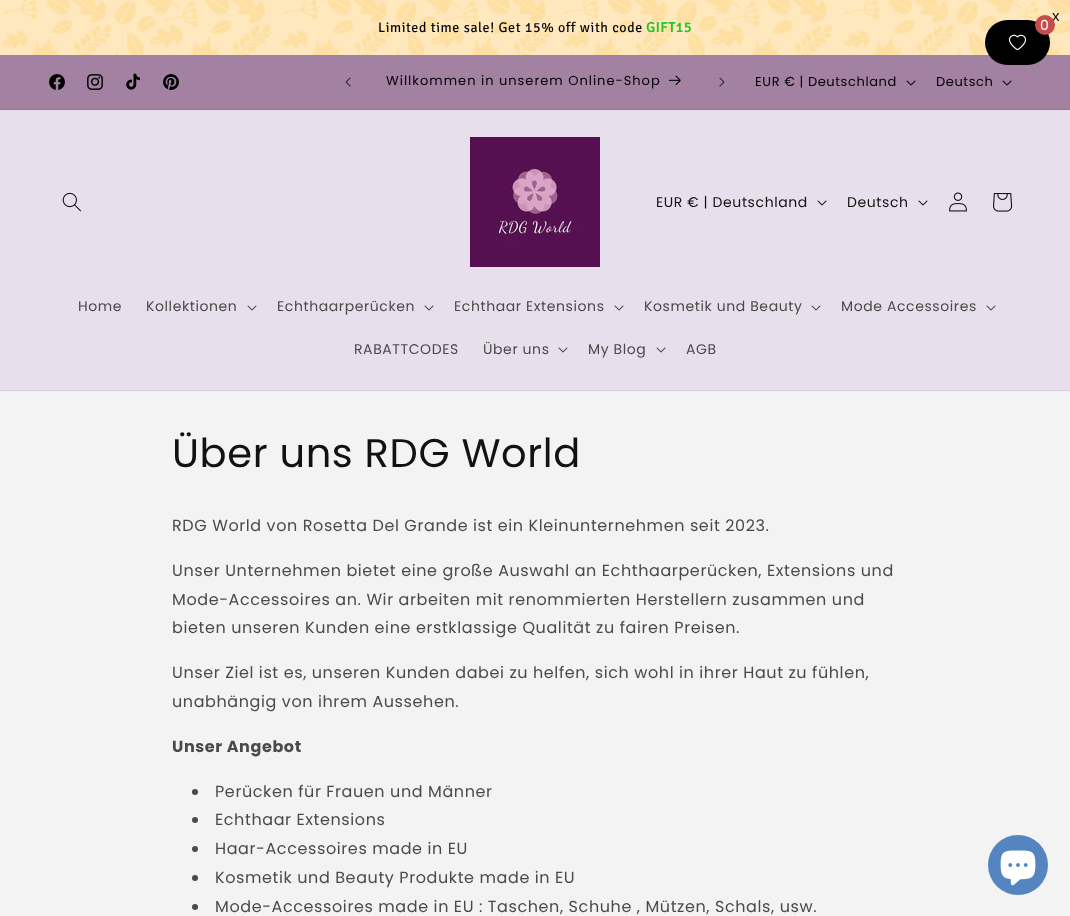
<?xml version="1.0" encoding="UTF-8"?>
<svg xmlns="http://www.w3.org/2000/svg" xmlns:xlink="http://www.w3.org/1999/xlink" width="1070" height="916">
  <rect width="100%" height="100%" fill="#f3f3f3" />
  <image x="0" y="0" width="1070" height="55" xlink:href="image1.png" />
  <rect y="55" width="1070" height="54" fill="#a381a3" />
  <rect x="985" y="20" width="65" height="45" rx="22.5" fill="#000000" />
  <image x="1008" y="34" width="19" height="16" xlink:href="image2.png" />
  <rect y="109" width="1070" height="1" fill="#967796" />
  <image x="49" y="74" width="16" height="16" xlink:href="image3.png" />
  <image x="87" y="74" width="16" height="16" xlink:href="image4.png" />
  <image x="126" y="73" width="14" height="17" xlink:href="image5.png" />
  <image x="163" y="74" width="16" height="16" xlink:href="image6.png" />
  <image x="345" y="77" width="6" height="10" xlink:href="image7.png" />
  <image x="669" y="75" width="12" height="11" xlink:href="image8.png" />
  <image x="719" y="77" width="6" height="10" xlink:href="image9.png" />
  <image x="906" y="80" width="10" height="6" xlink:href="image10.png" />
  <image x="1002" y="80" width="10" height="6" xlink:href="image10.png" />
  <rect y="110" width="1070" height="280" fill="#e8dfed" />
  <rect y="390" width="1070" height="1" fill="#d7cfdb" />
  <image x="62" y="192" width="19" height="20" xlink:href="image11.png" />
  <image x="470" y="137" width="130" height="130" xlink:href="image12.png" />
  <image x="817" y="200" width="10" height="6" xlink:href="image13.png" />
  <image x="918" y="200" width="10" height="6" xlink:href="image13.png" />
  <image x="949" y="192" width="18" height="20" xlink:href="image14.png" />
  <image x="993" y="193" width="20" height="19" xlink:href="image15.png" />
  <image x="247" y="305" width="10" height="6" xlink:href="image16.png" />
  <image x="424" y="305" width="10" height="6" xlink:href="image16.png" />
  <image x="614" y="305" width="10" height="6" xlink:href="image16.png" />
  <image x="811" y="305" width="10" height="6" xlink:href="image16.png" />
  <image x="986" y="305" width="10" height="6" xlink:href="image16.png" />
  <image x="558" y="347" width="10" height="6" xlink:href="image16.png" />
  <image x="656" y="347" width="10" height="6" xlink:href="image16.png" />
  <circle cx="195" cy="792" r="3" fill="#4a4a4a" />
  <circle cx="195" cy="820" r="3" fill="#4a4a4a" />
  <circle cx="195" cy="849" r="3" fill="#4a4a4a" />
  <circle cx="195" cy="878" r="3" fill="#4a4a4a" />
  <circle cx="195" cy="907" r="3" fill="#4a4a4a" />
  <circle cx="1018" cy="865" r="30" fill="#5485c1" />
  <image x="1000" y="850" width="36" height="36" xlink:href="image17.png" />
  <text x="1052" y="21" style="font-family: Liberation Sans; font-size: 15px; letter-spacing: 0.6px; fill: #000000">x</text>
  <text x="378" y="32" style="font-family: Signika Negative; font-size: 14px; font-weight: 300; letter-spacing: 0.6px; fill: #000000">Limited time sale! Get 15% off with code</text>
  <text x="646" y="32" style="font-family: Signika Negative; font-size: 14px; font-weight: bold; letter-spacing: 0.6px; fill: #23c529">GIFT15</text>
  <circle cx="1045" cy="25" r="10" fill="#c74d4d" />
  <text x="1040" y="30" style="font-family: Poppins; font-size: 14px; letter-spacing: 0.6px; fill: #ffffff">0</text>
  <text x="386" y="85" style="font-family: Poppins; font-size: 13px; letter-spacing: 1px; fill: #000000">Willkommen in unserem Online-Shop</text>
  <text x="755" y="86" style="font-family: Poppins; font-size: 13px; letter-spacing: 0.6px; fill: #000000">EUR € | Deutschland</text>
  <text x="936" y="86" style="font-family: Poppins; font-size: 13px; letter-spacing: 0.6px; fill: #000000">Deutsch</text>
  <text x="656" y="207" style="font-family: Poppins; font-size: 14px; letter-spacing: 0.6px; fill: #121212">EUR € | Deutschland</text>
  <text x="847" y="207" style="font-family: Poppins; font-size: 14px; letter-spacing: 0.6px; fill: #121212">Deutsch</text>
  <text x="78" y="311" style="font-family: Poppins; font-size: 14px; letter-spacing: 0.6px; fill: #4a4a4a">Home</text>
  <text x="146" y="311" style="font-family: Poppins; font-size: 14px; letter-spacing: 0.6px; fill: #4a4a4a">Kollektionen</text>
  <text x="277" y="311" style="font-family: Poppins; font-size: 14px; letter-spacing: 0.6px; fill: #4a4a4a">Echthaarperücken</text>
  <text x="454" y="311" style="font-family: Poppins; font-size: 14px; letter-spacing: 0.6px; fill: #4a4a4a">Echthaar Extensions</text>
  <text x="644" y="311" style="font-family: Poppins; font-size: 14px; letter-spacing: 0.6px; fill: #4a4a4a">Kosmetik und Beauty</text>
  <text x="841" y="311" style="font-family: Poppins; font-size: 14px; letter-spacing: 0.6px; fill: #4a4a4a">Mode Accessoires</text>
  <text x="354" y="354" style="font-family: Poppins; font-size: 14px; letter-spacing: 0.6px; fill: #4a4a4a">RABATTCODES</text>
  <text x="483" y="354" style="font-family: Poppins; font-size: 14px; letter-spacing: 0.6px; fill: #4a4a4a">Über uns</text>
  <text x="588" y="354" style="font-family: Poppins; font-size: 14px; letter-spacing: 0.6px; fill: #4a4a4a">My Blog</text>
  <text x="686" y="354" style="font-family: Poppins; font-size: 14px; letter-spacing: 0.6px; fill: #4a4a4a">AGB</text>
  <text x="172" y="467" style="font-family: Poppins; font-size: 40px; letter-spacing: 0.6px; fill: #121212">Über uns RDG World</text>
  <text x="172" y="531" style="font-family: Poppins; font-size: 16px; letter-spacing: 0.6px; fill: #4a4a4a">RDG World von Rosetta Del Grande ist ein Kleinunternehmen seit 2023.</text>
  <text x="172" y="576" style="font-family: Poppins; font-size: 16px; letter-spacing: 0.6px; fill: #4a4a4a">Unser Unternehmen bietet eine große Auswahl an Echthaarperücken, Extensions und</text>
  <text x="172" y="605" style="font-family: Poppins; font-size: 16px; letter-spacing: 0.6px; fill: #4a4a4a">Mode-Accessoires an. Wir arbeiten mit renommierten Herstellern zusammen und</text>
  <text x="172" y="633" style="font-family: Poppins; font-size: 16px; letter-spacing: 0.6px; fill: #4a4a4a">bieten unseren Kunden eine erstklassige Qualität zu fairen Preisen.</text>
  <text x="172" y="678" style="font-family: Poppins; font-size: 16px; letter-spacing: 0.6px; fill: #4a4a4a">Unser Ziel ist es, unseren Kunden dabei zu helfen, sich wohl in ihrer Haut zu fühlen,</text>
  <text x="172" y="707" style="font-family: Poppins; font-size: 16px; letter-spacing: 0.6px; fill: #4a4a4a">unabhängig von ihrem Aussehen.</text>
  <text x="172" y="752" style="font-family: Poppins; font-size: 16px; font-weight: bold; letter-spacing: 0.6px; fill: #4a4a4a">Unser Angebot</text>
  <text x="215" y="797" style="font-family: Poppins; font-size: 16px; letter-spacing: 0.6px; fill: #4a4a4a">Perücken für Frauen und Männer</text>
  <text x="215" y="825" style="font-family: Poppins; font-size: 16px; letter-spacing: 0.6px; fill: #4a4a4a">Echthaar Extensions</text>
  <text x="215" y="854" style="font-family: Poppins; font-size: 16px; letter-spacing: 0.6px; fill: #4a4a4a">Haar-Accessoires made in EU</text>
  <text x="215" y="883" style="font-family: Poppins; font-size: 16px; letter-spacing: 0.6px; fill: #4a4a4a">Kosmetik und Beauty Produkte made in EU</text>
  <text x="215" y="912" style="font-family: Poppins; font-size: 16px; letter-spacing: 0.6px; fill: #4a4a4a">Mode-Accessoires made in EU : Taschen, Schuhe , Mützen, Schals, usw.</text>
</svg>
